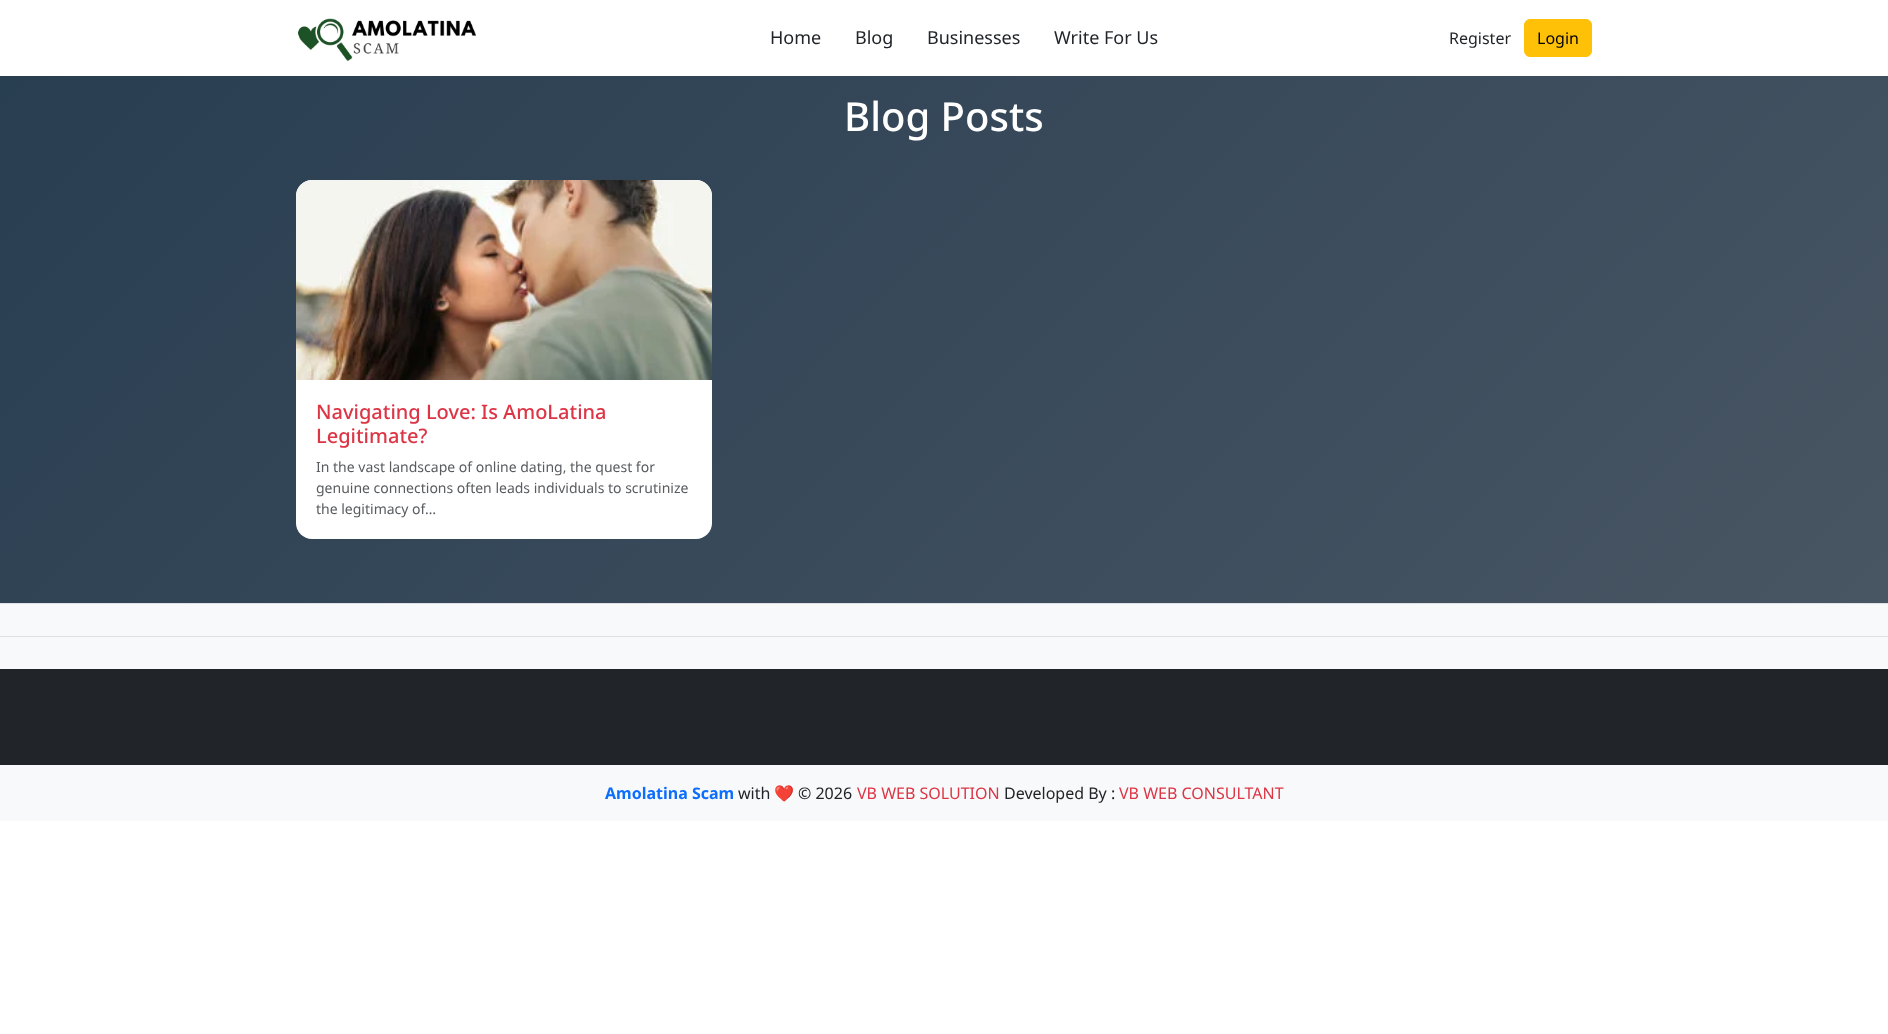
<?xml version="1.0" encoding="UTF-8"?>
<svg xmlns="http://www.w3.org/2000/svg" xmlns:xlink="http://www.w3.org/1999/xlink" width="1888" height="1034">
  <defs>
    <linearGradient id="g1" gradientUnits="userSpaceOnUse" x1="340" y1="-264" x2="1548" y2="943"><stop offset="0" stop-color="#283e51" /><stop offset="1" stop-color="#485563" /></linearGradient>
  </defs>
  <rect width="100%" height="100%" fill="#ffffff" />
  <image x="298" y="18" width="178" height="43" xlink:href="image1.png" />
  <rect x="1524.5" y="19.5" width="67" height="37" rx="5.5" fill="#ffc107" stroke="#ffc107" />
  <rect y="76" width="1888" height="527" fill="url(#g1)" />
  <rect x="296" y="180" width="416" height="359" rx="16" fill="#ffffff" />
  <image x="296" y="180" width="416" height="200" xlink:href="image2.png" />
  <rect y="604" width="1888" height="32" fill="#f8f9fa" />
  <rect y="603" width="1888" height="1" fill="#dee2e6" />
  <rect y="637" width="1888" height="32" fill="#f8f9fa" />
  <rect y="636" width="1888" height="1" fill="#dee2e6" />
  <rect y="669" width="1888" height="96" fill="#212529" />
  <rect y="765" width="1888" height="56" fill="#f8f9fa" />
  <text x="770" y="44" style="font-family: Noto Sans; font-size: 18px; fill: #212529">Home</text>
  <text x="855" y="44" style="font-family: Noto Sans; font-size: 18px; fill: #212529">Blog</text>
  <text x="927" y="44" style="font-family: Noto Sans; font-size: 18px; fill: #212529">Businesses</text>
  <text x="1054" y="44" style="font-family: Noto Sans; font-size: 18px; fill: #212529">Write For Us</text>
  <text x="1449" y="44" style="font-family: Noto Sans; font-size: 16px; fill: #212529">Register</text>
  <text x="1537" y="44" style="font-family: Noto Sans; font-size: 16px; fill: #000000">Login</text>
  <text x="844" y="131" style="font-family: Noto Sans; font-size: 40px; font-weight: 500; fill: #ffffff">Blog Posts</text>
  <text x="316" y="419" style="font-family: Noto Sans; font-size: 20px; font-weight: 500; fill: #dc3545">Navigating Love: Is AmoLatina</text>
  <text x="316" y="443" style="font-family: Noto Sans; font-size: 20px; font-weight: 500; fill: #dc3545">Legitimate?</text>
  <text x="316" y="472" style="font-family: Noto Sans; font-size: 14px; fill: #595c5f">In the vast landscape of online dating, the quest for</text>
  <text x="316" y="493" style="font-family: Noto Sans; font-size: 14px; fill: #595c5f">genuine connections often leads individuals to scrutinize</text>
  <text x="316" y="514" style="font-family: Noto Sans; font-size: 14px; fill: #595c5f">the legitimacy of…</text>
  <text x="605" y="799" style="font-family: Noto Sans; font-size: 16px; font-weight: bold; fill: #0d6efd">Amolatina Scam</text>
  <text x="738" y="799" style="font-family: Noto Sans; font-size: 16px; fill: #212529">with</text>
  <text x="774" y="799" style="font-family: Noto Color Emoji; font-size: 16px; fill: #212529">❤️</text>
  <text x="798" y="799" style="font-family: Noto Sans; font-size: 16px; fill: #212529">© 2026</text>
  <text x="857" y="799" style="font-family: Noto Sans; font-size: 16px; fill: #dc3545">VB WEB SOLUTION</text>
  <text x="1004" y="799" style="font-family: Noto Sans; font-size: 16px; fill: #212529">Developed By :</text>
  <text x="1119" y="799" style="font-family: Noto Sans; font-size: 16px; fill: #dc3545">VB WEB CONSULTANT</text>
</svg>
